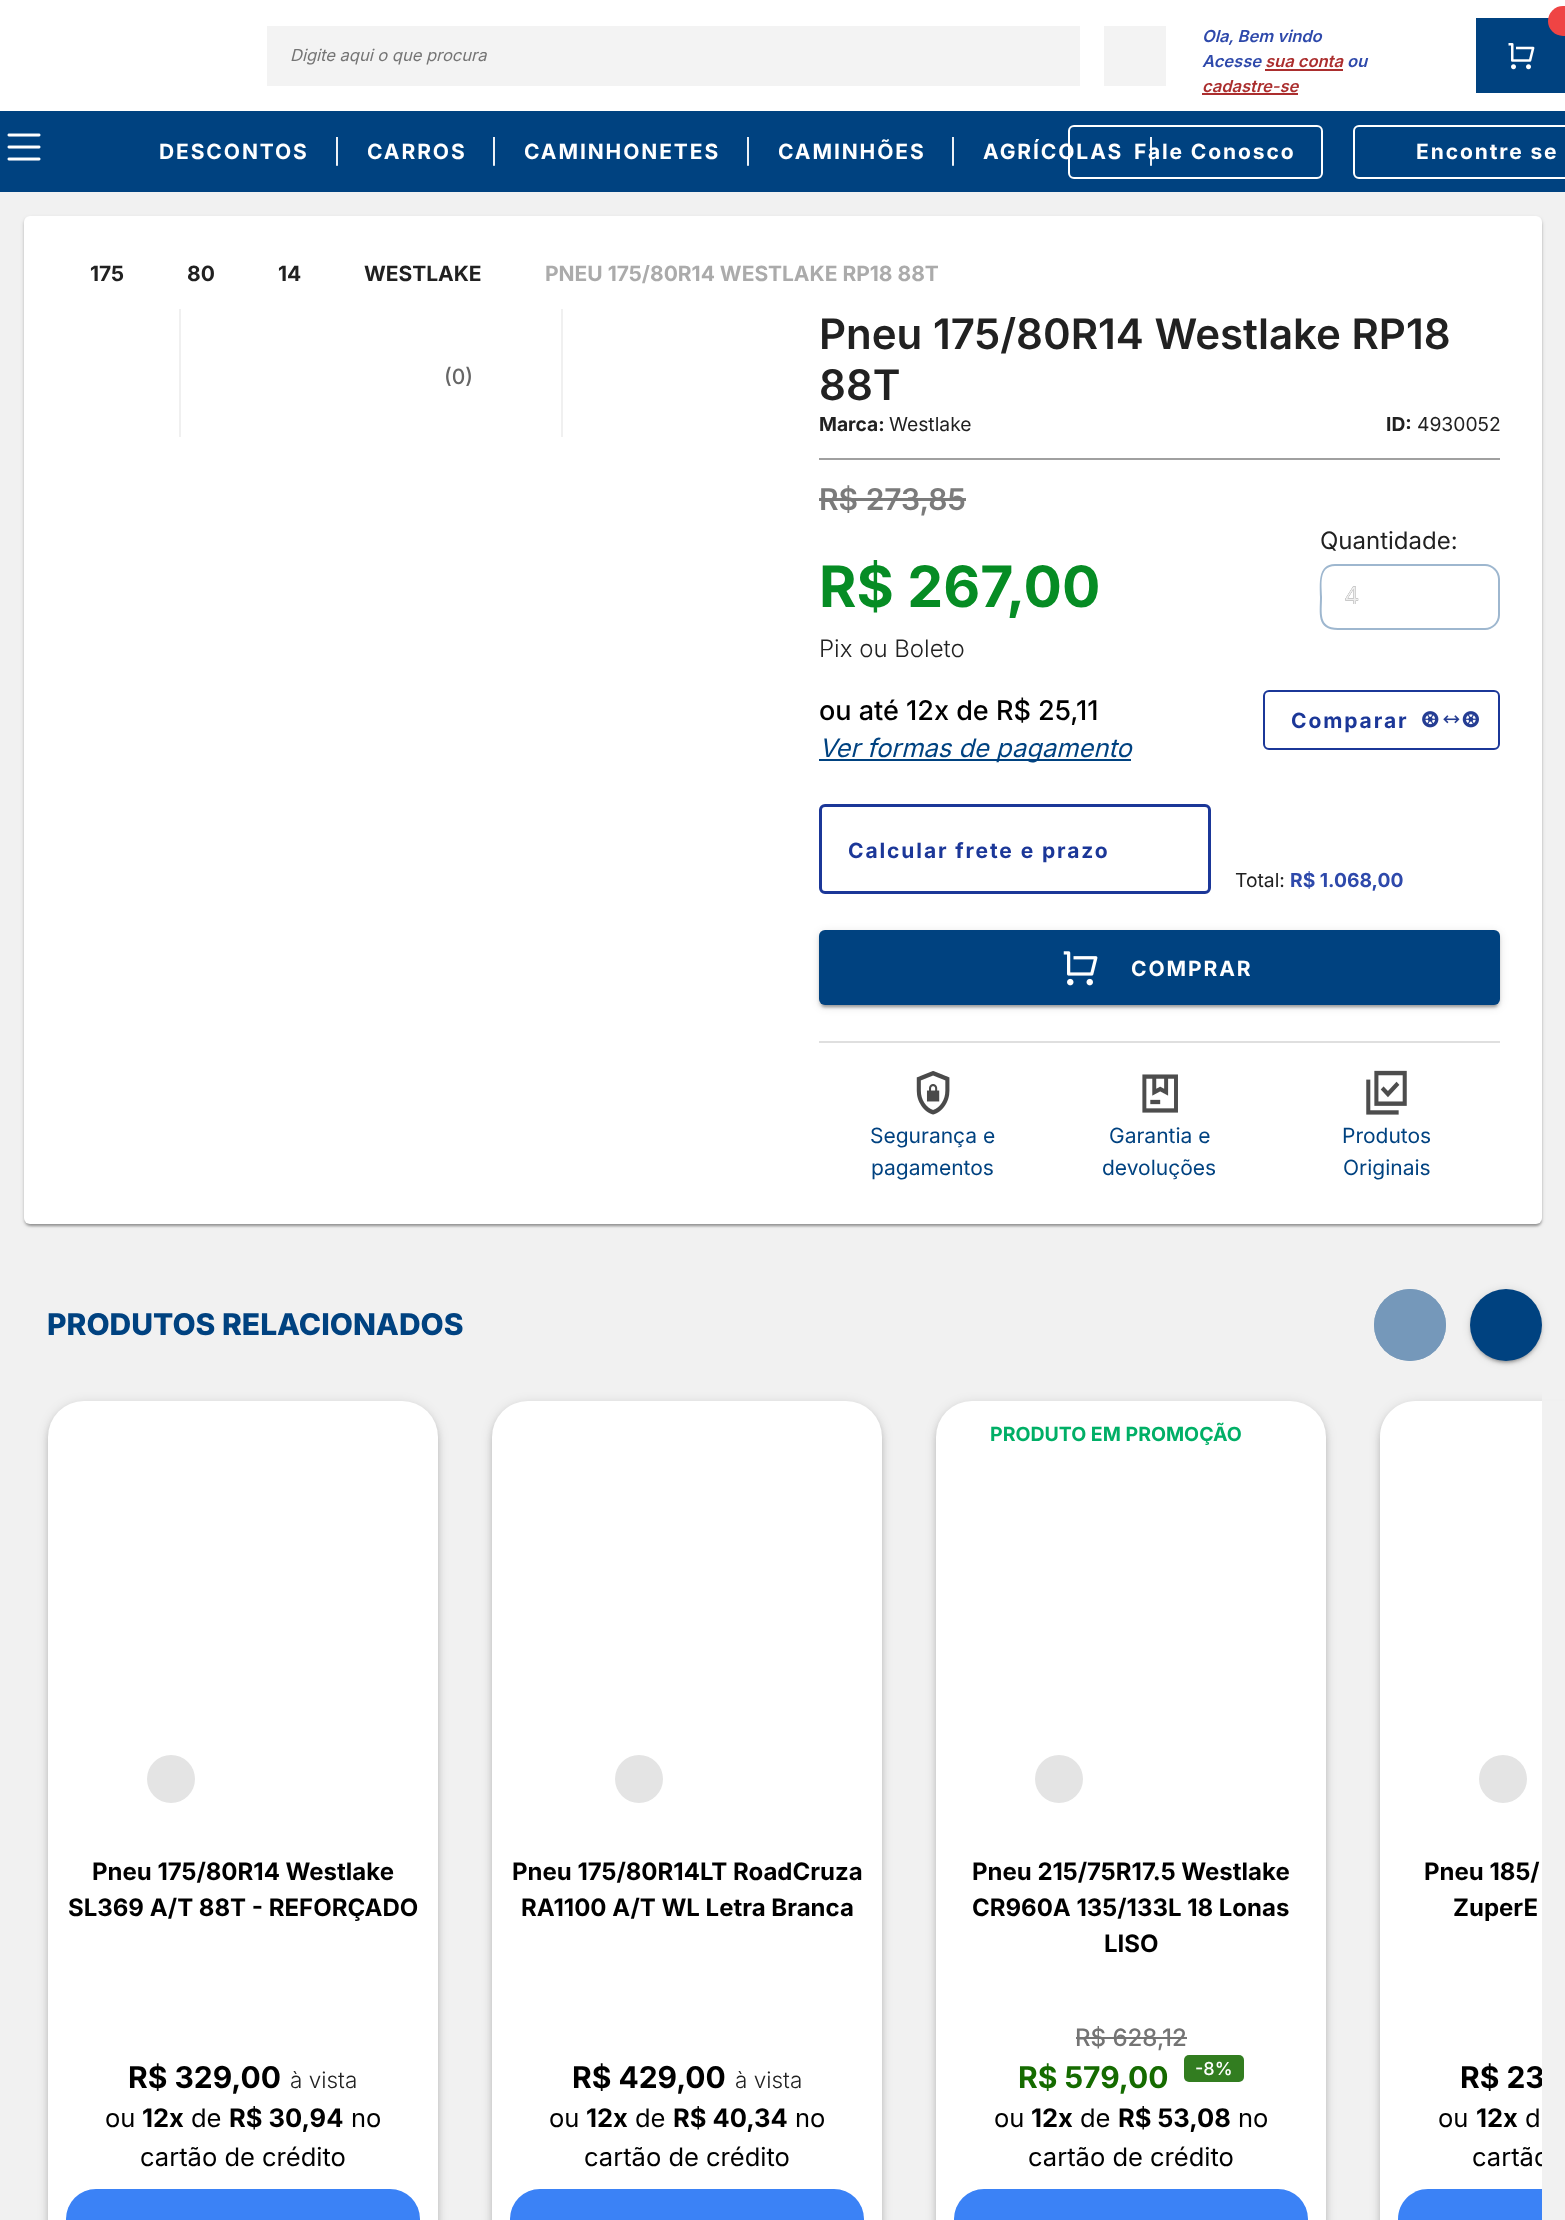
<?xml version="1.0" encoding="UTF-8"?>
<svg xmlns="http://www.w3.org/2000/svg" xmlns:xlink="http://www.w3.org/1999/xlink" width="1565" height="2220">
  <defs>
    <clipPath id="clip1"><rect x="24" y="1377" width="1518" height="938" /></clipPath>
    <clipPath id="clip2"><path d="M 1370 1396 h 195 v 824 h -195 z m 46 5 h 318 c 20 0 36 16 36 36 v 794 c 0 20 -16 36 -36 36 h -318 c -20 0 -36 -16 -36 -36 v -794 c 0 -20 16 -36 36 -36 z" clip-rule="evenodd" /></clipPath>
    <clipPath id="clip3"><rect x="24" y="1377" width="1518" height="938" /></clipPath>
  </defs>
  <rect width="100%" height="100%" fill="#f1f1f1" />
  <rect width="1565" height="111" fill="#ffffff" />
  <rect x="267" y="26" width="813" height="60" fill="#f3f3f3" />
  <rect x="1104" y="26" width="62" height="60" fill="#f3f3f3" />
  <rect x="1265" y="69" width="78" height="2" fill="#ab2e2e" />
  <rect x="1202" y="93" width="96" height="2" fill="#ab2e2e" />
  <rect x="1476" y="18" width="89" height="75" fill="#004280" />
  <circle cx="1563" cy="21" r="15" fill="#ef4444" />
  <image x="1508" y="43" width="27" height="27" xlink:href="image1.png" />
  <rect y="111" width="1565" height="81" fill="#004280" />
  <image x="7" y="133" width="34" height="28" xlink:href="image2.png" />
  <rect x="1069" y="126" width="253" height="52" rx="5" fill="none" stroke="#ffffff" stroke-width="2" />
  <rect x="1354" y="126" width="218" height="52" rx="5" fill="none" stroke="#ffffff" stroke-width="2" />
  <rect x="24" y="218" width="1518" height="1008" rx="6" fill="#000000" fill-opacity="0.12" filter="blur(2px)" />
  <rect x="24" y="218" width="1518" height="1008" rx="6" fill="#000000" fill-opacity="0.14" filter="blur(1px)" />
  <rect x="26" y="221" width="1515" height="1005" rx="5" fill="#000000" fill-opacity="0.2" filter="blur(1px)" />
  <rect x="24" y="216" width="1518" height="1008" rx="6" fill="#ffffff" />
  <rect x="179" y="309" width="2" height="128" fill="#f0f0f0" />
  <rect x="561" y="309" width="2" height="128" fill="#f0f0f0" />
  <rect x="819" y="458" width="681" height="2" fill="#a0a0a0" />
  <rect x="819" y="498" width="147" height="3" fill="#7b7b7b" />
  <path d="M 1335 564 h 3 v 66 c -22 0 -18 -17 -18 -33 c 0 -12 -3 -33 15 -33 z m 0 2 h 3 v 62 c -20 0 -16 -16 -16 -31 c 0 -11 -4 -31 13 -31 z" fill="#9eb7cf" fill-rule="evenodd" />
  <rect x="819" y="759" width="312" height="2" fill="#004280" />
  <rect x="1264" y="691" width="235" height="58" rx="5" fill="none" stroke="#1b3798" stroke-width="2" />
  <image x="1422" y="711" width="57" height="17" xlink:href="image3.png" />
  <rect x="820.5" y="805.5" width="389" height="87" rx="4.5" fill="none" stroke="#1b3798" stroke-width="3" />
  <rect x="819" y="932" width="681" height="75" rx="6" fill="#000000" fill-opacity="0.12" filter="blur(4px)" />
  <rect x="819" y="933" width="681" height="75" rx="6" fill="#000000" fill-opacity="0.14" filter="blur(1.5px)" />
  <rect x="822" y="938" width="675" height="69" rx="3" fill="#000000" fill-opacity="0.2" filter="blur(1px)" />
  <rect x="819" y="930" width="681" height="75" rx="6" fill="#004280" />
  <image x="1063" y="951" width="35" height="35" xlink:href="image4.png" />
  <rect x="819" y="1041" width="681" height="2" fill="#dfdfdf" />
  <image x="916" y="1071" width="34" height="44" xlink:href="image5.png" />
  <image x="1142" y="1074" width="36" height="39" xlink:href="image6.png" />
  <image x="1366" y="1070" width="41" height="45" xlink:href="image7.png" />
  <circle cx="1410" cy="1325" r="36" fill="#004280" />
  <circle cx="1410" cy="1325" r="36" fill="#ffffff" fill-opacity="0.46" />
  <rect x="1470" y="1290" width="72" height="72" rx="36" fill="#000000" fill-opacity="0.12" filter="blur(4px)" />
  <rect x="1470" y="1292" width="72" height="72" rx="36" fill="#000000" fill-opacity="0.14" filter="blur(1.5px)" />
  <rect x="1473" y="1296" width="66" height="66" rx="33" fill="#000000" fill-opacity="0.2" filter="blur(1px)" />
  <circle cx="1506" cy="1325" r="36" fill="#004280" />
  <rect x="48" y="1403" width="390" height="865" rx="36" fill="#000000" fill-opacity="0.12" filter="blur(6px)" />
  <rect x="48" y="1406" width="390" height="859" rx="36" fill="#000000" fill-opacity="0.14" filter="blur(3px)" />
  <rect x="48" y="1401" width="390" height="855" rx="36" fill="#ffffff" />
  <circle cx="171" cy="1779" r="24" fill="#e4e4e4" />
  <rect x="66" y="2189" width="354" height="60" rx="30" fill="#3b82f6" />
  <rect x="492" y="1403" width="390" height="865" rx="36" fill="#000000" fill-opacity="0.12" filter="blur(6px)" />
  <rect x="492" y="1406" width="390" height="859" rx="36" fill="#000000" fill-opacity="0.14" filter="blur(3px)" />
  <rect x="492" y="1401" width="390" height="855" rx="36" fill="#ffffff" />
  <circle cx="639" cy="1779" r="24" fill="#e4e4e4" />
  <rect x="510" y="2189" width="354" height="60" rx="30" fill="#3b82f6" />
  <rect x="936" y="1403" width="390" height="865" rx="36" fill="#000000" fill-opacity="0.12" filter="blur(6px)" />
  <rect x="936" y="1406" width="390" height="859" rx="36" fill="#000000" fill-opacity="0.14" filter="blur(3px)" />
  <rect x="936" y="1401" width="390" height="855" rx="36" fill="#ffffff" />
  <circle cx="1059" cy="1779" r="24" fill="#e4e4e4" />
  <rect x="1076" y="2037" width="111" height="2" fill="#747474" />
  <rect x="1184" y="2055" width="60" height="27" rx="5" fill="#327d20" />
  <rect x="954" y="2189" width="354" height="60" rx="30" fill="#3b82f6" />
  <g clip-path="url(#clip1)">
    <rect x="1380" y="1403" width="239" height="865" rx="36" fill="#000000" fill-opacity="0.12" filter="blur(6px)" />
  </g>
  <g clip-path="url(#clip2)">
    <rect x="1380" y="1406" width="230" height="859" rx="36" fill="#000000" fill-opacity="0.14" filter="blur(3px)" />
  </g>
  <path d="M 1416 1401 h 126 v 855 h -126 c -20 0 -36 -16 -36 -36 v -783 c 0 -20 16 -36 36 -36 z" fill="#ffffff" />
  <circle cx="1503" cy="1779" r="24" fill="#e4e4e4" />
  <path d="M 1428 2189 h 114 v 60 h -114 c -16.5 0 -30 -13.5 -30 -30 c 0 -16.5 13.5 -30 30 -30 z" fill="#3b82f6" />
  <text x="290" y="61" style="font-family: Inter; font-size: 16.5px; font-style: italic; fill: #747474">Digite aqui o que procura</text>
  <text x="1202" y="42" style="font-family: Inter; font-size: 16.5px; font-weight: 600; font-style: italic; fill: #2e49ab">Ola, Bem vindo</text>
  <text x="1202" y="67" style="font-family: Inter; font-size: 16.5px; font-weight: 600; font-style: italic; fill: #2e49ab">Acesse</text>
  <text x="1265" y="67" style="font-family: Inter; font-size: 16.5px; font-weight: 600; font-style: italic; fill: #ab2e2e">sua conta</text>
  <text x="1347" y="67" style="font-family: Inter; font-size: 16.5px; font-weight: 600; font-style: italic; fill: #2e49ab">ou</text>
  <text x="1202" y="92" style="font-family: Inter; font-size: 16.5px; font-weight: 600; font-style: italic; fill: #ab2e2e">cadastre-se</text>
  <text x="159" y="159" style="font-family: Inter; font-size: 21px; font-weight: bold; letter-spacing: 1.9px; fill: #ffffff">DESCONTOS</text>
  <text x="333" y="160" style="font-family: Inter; font-size: 24px; fill: #ffffff">|</text>
  <text x="367" y="159" style="font-family: Inter; font-size: 21px; font-weight: bold; letter-spacing: 1.9px; fill: #ffffff">CARROS</text>
  <text x="490" y="160" style="font-family: Inter; font-size: 24px; fill: #ffffff">|</text>
  <text x="524" y="159" style="font-family: Inter; font-size: 21px; font-weight: bold; letter-spacing: 1.9px; fill: #ffffff">CAMINHONETES</text>
  <text x="744" y="160" style="font-family: Inter; font-size: 24px; fill: #ffffff">|</text>
  <text x="778" y="159" style="font-family: Inter; font-size: 21px; font-weight: bold; letter-spacing: 1.9px; fill: #ffffff">CAMINHÕES</text>
  <text x="949" y="160" style="font-family: Inter; font-size: 24px; fill: #ffffff">|</text>
  <text x="983" y="159" style="font-family: Inter; font-size: 21px; font-weight: bold; letter-spacing: 1.9px; fill: #ffffff">AGRÍCOLAS</text>
  <text x="1147" y="160" style="font-family: Inter; font-size: 24px; fill: #ffffff">|</text>
  <text x="1134" y="159" style="font-family: Inter; font-size: 21px; font-weight: bold; letter-spacing: 1.9px; fill: #ffffff">Fale Conosco</text>
  <text x="1416" y="159" style="font-family: Inter; font-size: 21px; font-weight: bold; letter-spacing: 1.9px; fill: #ffffff">Encontre se</text>
  <text x="90" y="281" style="font-family: Inter; font-size: 21px; font-weight: bold; fill: #212121">175</text>
  <text x="187" y="281" style="font-family: Inter; font-size: 21px; font-weight: bold; fill: #212121">80</text>
  <text x="278" y="281" style="font-family: Inter; font-size: 21px; font-weight: bold; fill: #212121">14</text>
  <text x="364" y="281" style="font-family: Inter; font-size: 21px; font-weight: bold; fill: #212121">WESTLAKE</text>
  <text x="545" y="281" style="font-family: Inter; font-size: 21px; font-weight: bold; fill: #ababab">PNEU 175/80R14 WESTLAKE RP18 88T</text>
  <text x="444" y="384" style="font-family: Inter; font-size: 21px; font-weight: 500; fill: #666666">(0)</text>
  <text x="819" y="349" style="font-family: Inter; font-size: 42px; font-weight: 600; fill: #212121">Pneu 175/80R14 Westlake RP18</text>
  <text x="819" y="400" style="font-family: Inter; font-size: 42px; font-weight: 600; fill: #212121">88T</text>
  <text x="819" y="431" style="font-family: Inter; font-size: 19.25px; font-weight: bold; fill: #212121">Marca:</text>
  <text x="889" y="431" style="font-family: Inter; font-size: 19.25px; fill: #212121">Westlake</text>
  <text x="1386" y="431" style="font-family: Inter; font-size: 19.25px; font-weight: bold; fill: #212121">ID:</text>
  <text x="1417" y="431" style="font-family: Inter; font-size: 19.25px; fill: #212121">4930052</text>
  <text x="819" y="510" style="font-family: Inter; font-size: 30px; font-weight: 600; fill: #7b7b7b">R$ 273,85</text>
  <text x="819" y="607" style="font-family: Inter; font-size: 57px; font-weight: bold; fill: #068c24">R$ 267,00</text>
  <text x="1320" y="549" style="font-family: Inter; font-size: 24px; fill: #212121">Quantidade:</text>
  <text x="1344" y="604" style="font-family: Inter; font-size: 24px; fill: #3e3e3e">4</text>
  <text x="1344" y="604" style="font-family: Inter; font-size: 24px; fill: #eeeeee">4</text>
  <path d="M 1338 564 h 147 c 8 0 15 7 15 15 v 36 c 0 8 -7 15 -15 15 h -147 z m 0 2 h 147 c 7 0 13 6 13 13 v 36 c 0 7 -6 13 -13 13 h -147 z" fill="#9eb7cf" fill-rule="evenodd" />
  <text x="819" y="657" style="font-family: Inter; font-size: 24px; font-weight: 300; fill: #212121">Pix ou Boleto</text>
  <text x="819" y="720" style="font-family: Inter; font-size: 27px; font-weight: 500; fill: #000000">ou até 12x de R$ 25,11</text>
  <text x="819" y="757" style="font-family: Inter; font-size: 25.5px; font-style: italic; fill: #004280">Ver formas de pagamento</text>
  <text x="1291" y="728" style="font-family: Inter; font-size: 21px; font-weight: bold; letter-spacing: 1.9px; fill: #1b3798">Comparar</text>
  <text x="848" y="858" style="font-family: Inter; font-size: 21px; font-weight: bold; letter-spacing: 1.9px; fill: #1b3798">Calcular frete e prazo</text>
  <text x="1235" y="887" style="font-family: Inter; font-size: 19.25px; fill: #212121">Total:</text>
  <text x="1290" y="887" style="font-family: Inter; font-size: 19.25px; font-weight: bold; fill: #2e49ab">R$ 1.068,00</text>
  <text x="1131" y="976" style="font-family: Inter; font-size: 21px; font-weight: bold; letter-spacing: 1.9px; fill: #ffffff">COMPRAR</text>
  <text x="870" y="1143" style="font-family: Inter; font-size: 21px; fill: #004280">Segurança e</text>
  <text x="871" y="1175" style="font-family: Inter; font-size: 21px; fill: #004280">pagamentos</text>
  <text x="1109" y="1143" style="font-family: Inter; font-size: 21px; fill: #004280">Garantia e</text>
  <text x="1102" y="1175" style="font-family: Inter; font-size: 21px; fill: #004280">devoluções</text>
  <text x="1342" y="1143" style="font-family: Inter; font-size: 21px; fill: #004280">Produtos</text>
  <text x="1343" y="1175" style="font-family: Inter; font-size: 21px; fill: #004280">Originais</text>
  <text x="47" y="1335" style="font-family: Inter; font-size: 30px; font-weight: 800; fill: #004280">PRODUTOS RELACIONADOS</text>
  <text x="92" y="1880" style="font-family: Inter; font-size: 24px; font-weight: bold; fill: #000000">Pneu 175/80R14 Westlake</text>
  <text x="68" y="1916" style="font-family: Inter; font-size: 24px; font-weight: bold; fill: #000000">SL369 A/T 88T - REFORÇADO</text>
  <text x="128" y="2088" style="font-family: Inter; font-size: 30px; font-weight: bold; fill: #000000">R$ 329,00</text>
  <text x="290" y="2088" style="font-family: Inter; font-size: 22.5px; font-weight: 300; fill: #212121">à vista</text>
  <text x="105" y="2127" style="font-family: Inter; font-size: 25.5px; fill: #000000">ou</text>
  <text x="142" y="2127" style="font-family: Inter; font-size: 25.5px; font-weight: bold; fill: #000000">12x</text>
  <text x="191" y="2127" style="font-family: Inter; font-size: 25.5px; fill: #000000">de</text>
  <text x="229" y="2127" style="font-family: Inter; font-size: 25.5px; font-weight: bold; fill: #000000">R$ 30,94</text>
  <text x="351" y="2127" style="font-family: Inter; font-size: 25.5px; fill: #000000">no</text>
  <text x="140" y="2166" style="font-family: Inter; font-size: 25.5px; fill: #000000">cartão de crédito</text>
  <text x="512" y="1880" style="font-family: Inter; font-size: 24px; font-weight: bold; fill: #000000">Pneu 175/80R14LT RoadCruza</text>
  <text x="521" y="1916" style="font-family: Inter; font-size: 24px; font-weight: bold; fill: #000000">RA1100 A/T WL Letra Branca</text>
  <text x="572" y="2088" style="font-family: Inter; font-size: 30px; font-weight: bold; fill: #000000">R$ 429,00</text>
  <text x="735" y="2088" style="font-family: Inter; font-size: 22.5px; font-weight: 300; fill: #212121">à vista</text>
  <text x="549" y="2127" style="font-family: Inter; font-size: 25.5px; fill: #000000">ou</text>
  <text x="586" y="2127" style="font-family: Inter; font-size: 25.5px; font-weight: bold; fill: #000000">12x</text>
  <text x="635" y="2127" style="font-family: Inter; font-size: 25.5px; fill: #000000">de</text>
  <text x="673" y="2127" style="font-family: Inter; font-size: 25.5px; font-weight: bold; fill: #000000">R$ 40,34</text>
  <text x="795" y="2127" style="font-family: Inter; font-size: 25.5px; fill: #000000">no</text>
  <text x="584" y="2166" style="font-family: Inter; font-size: 25.5px; fill: #000000">cartão de crédito</text>
  <text x="990" y="1441" style="font-family: Inter; font-size: 19.5px; font-weight: bold; fill: #00af66">PRODUTO EM PROMOÇÃO</text>
  <text x="972" y="1880" style="font-family: Inter; font-size: 24px; font-weight: bold; fill: #000000">Pneu 215/75R17.5 Westlake</text>
  <text x="972" y="1916" style="font-family: Inter; font-size: 24px; font-weight: bold; fill: #000000">CR960A 135/133L 18 Lonas</text>
  <text x="1104" y="1952" style="font-family: Inter; font-size: 24px; font-weight: bold; fill: #000000">LISO</text>
  <text x="1075" y="2046" style="font-family: Inter; font-size: 24px; font-weight: 500; fill: #747474">R$ 628,12</text>
  <text x="1018" y="2088" style="font-family: Inter; font-size: 30px; font-weight: bold; fill: #156b00">R$ 579,00</text>
  <text x="1195" y="2075" style="font-family: Inter; font-size: 18px; font-weight: 500; fill: #ffffff">-8%</text>
  <text x="994" y="2127" style="font-family: Inter; font-size: 25.5px; fill: #000000">ou</text>
  <text x="1031" y="2127" style="font-family: Inter; font-size: 25.5px; font-weight: bold; fill: #000000">12x</text>
  <text x="1080" y="2127" style="font-family: Inter; font-size: 25.5px; fill: #000000">de</text>
  <text x="1118" y="2127" style="font-family: Inter; font-size: 25.5px; font-weight: bold; fill: #000000">R$ 53,08</text>
  <text x="1238" y="2127" style="font-family: Inter; font-size: 25.5px; fill: #000000">no</text>
  <text x="1028" y="2166" style="font-family: Inter; font-size: 25.5px; fill: #000000">cartão de crédito</text>
  <text x="1424" y="1880" style="font-family: Inter; font-size: 24px; font-weight: bold; fill: #000000">Pneu 185/</text>
  <text x="1453" y="1916" style="font-family: Inter; font-size: 24px; font-weight: bold; fill: #000000">ZuperE</text>
  <g clip-path="url(#clip3)">
    <text x="1460" y="2088" style="font-family: Inter; font-size: 30px; font-weight: bold; fill: #000000">R$ 23</text>
  </g>
  <text x="1438" y="2127" style="font-family: Inter; font-size: 25.5px; fill: #000000">ou</text>
  <text x="1476" y="2127" style="font-family: Inter; font-size: 25.5px; font-weight: bold; fill: #000000">12x</text>
  <text x="1525" y="2127" style="font-family: Inter; font-size: 25.5px; fill: #000000">d</text>
  <g clip-path="url(#clip3)">
    <text x="1472" y="2166" style="font-family: Inter; font-size: 25.5px; fill: #000000">cartão</text>
  </g>
</svg>
